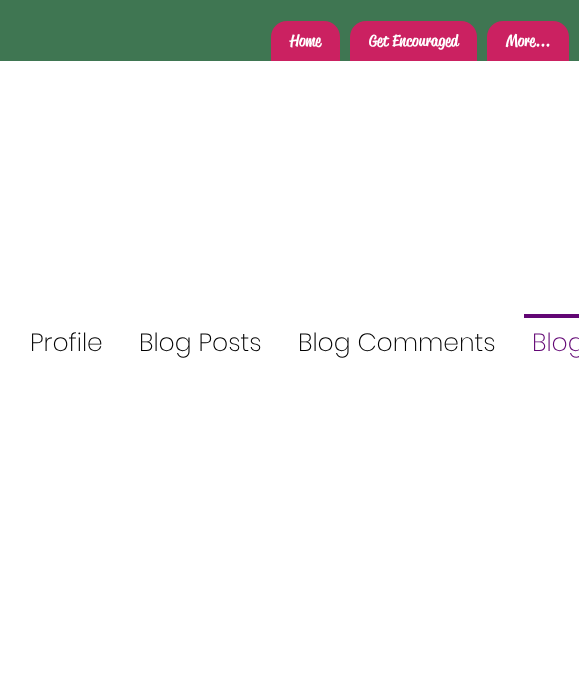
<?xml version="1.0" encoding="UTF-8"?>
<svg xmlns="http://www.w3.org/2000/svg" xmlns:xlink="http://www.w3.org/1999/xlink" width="579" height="694">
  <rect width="100%" height="100%" fill="#ffffff" />
  <rect width="579" height="61" fill="#3f7652" />
  <path d="M 287 21 h 37 c 9 0 16 7 16 16 v 24 h -69 v -24 c 0 -9 7 -16 16 -16 z" fill="#cb2161" />
  <path d="M 366 21 h 95 c 9 0 16 7 16 16 v 24 h -127 v -24 c 0 -9 7 -16 16 -16 z" fill="#cb2161" />
  <path d="M 503 21 h 50 c 9 0 16 7 16 16 v 24 h -82 v -24 c 0 -9 7 -16 16 -16 z" fill="#cb2161" />
  <rect x="524" y="314" width="55" height="4" fill="#620674" />
  <text x="290" y="46" style="font-family: 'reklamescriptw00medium'; font-size: 16px; font-weight: 500; fill: #ffffff">Home</text>
  <text x="369" y="46" style="font-family: 'reklamescriptw00medium'; font-size: 16px; font-weight: 500; fill: #ffffff">Get Encouraged</text>
  <text x="506" y="46" style="font-family: 'reklamescriptw00medium'; font-size: 16px; font-weight: 500; fill: #ffffff">More...</text>
  <text x="30" y="351" style="font-family: Poppins; font-size: 25px; font-weight: 200; fill: #000000">Profile</text>
  <text x="139" y="351" style="font-family: Poppins; font-size: 25px; font-weight: 200; fill: #000000">Blog Posts</text>
  <text x="298" y="351" style="font-family: Poppins; font-size: 25px; font-weight: 200; fill: #000000">Blog Comments</text>
  <text x="532" y="351" style="font-family: Poppins; font-size: 25px; font-weight: 200; fill: #620674">Blog</text>
</svg>
